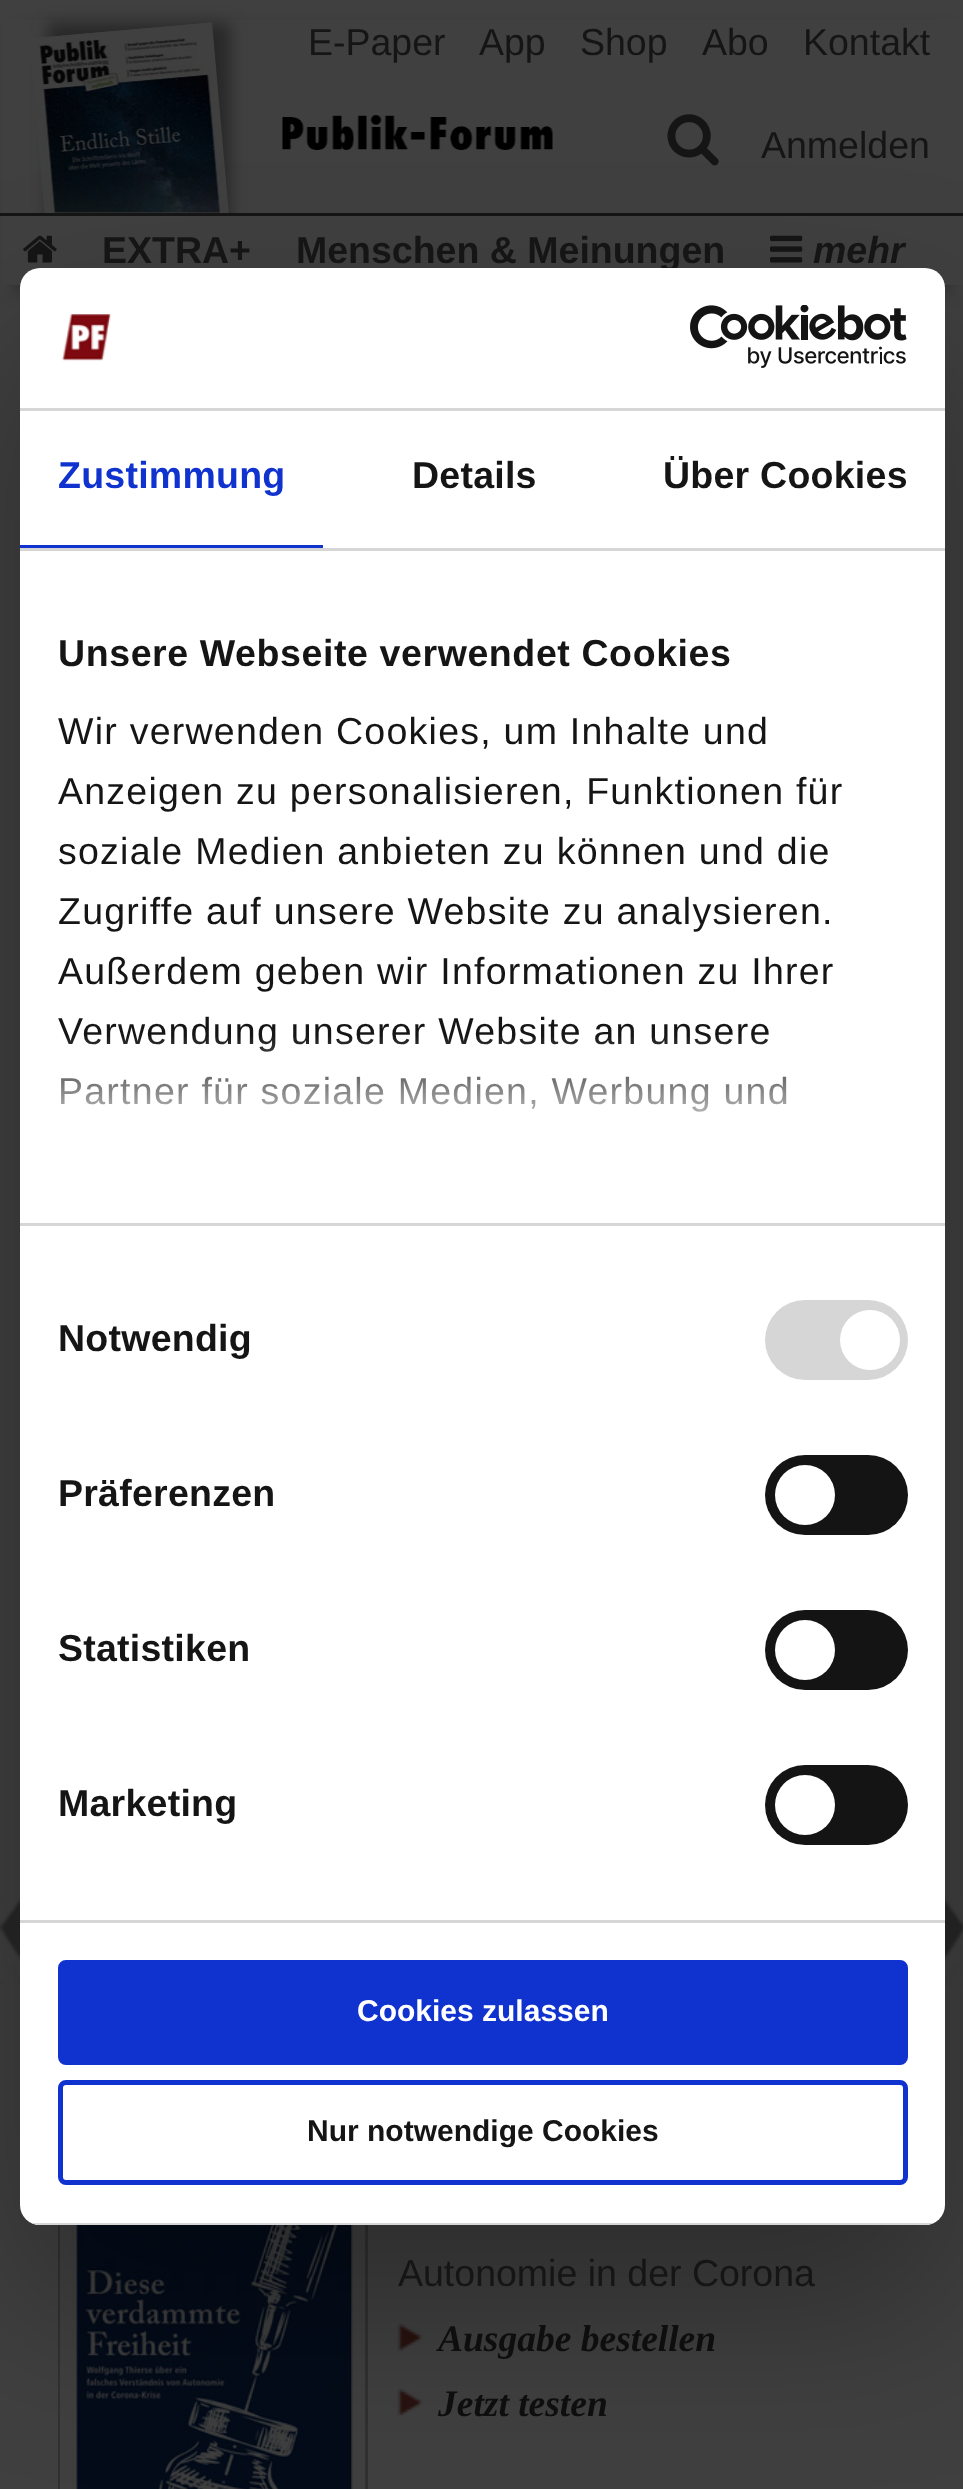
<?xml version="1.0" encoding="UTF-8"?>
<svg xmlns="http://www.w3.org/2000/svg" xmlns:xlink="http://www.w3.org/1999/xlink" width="963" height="2489">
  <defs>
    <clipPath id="clip1"><rect x="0" y="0" width="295" height="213" /></clipPath>
    <clipPath id="clip2"><path d="M 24 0 h 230 v 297 h -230 z m 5.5 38.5 l 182.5 -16 l 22 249 l -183 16 z" clip-rule="evenodd" /></clipPath>
    <linearGradient id="g1" gradientUnits="userSpaceOnUse" x1="466" y1="1222" x2="466" y2="1034"><stop offset="0" stop-color="#ffffff" /><stop offset="0.5" stop-color="#ffffff" stop-opacity="0.8" /><stop offset="1" stop-color="#ffffff" stop-opacity="0" /></linearGradient>
    <clipPath id="clip3"><rect x="20" y="268" width="925" height="1957" rx="20" /></clipPath>
  </defs>
  <rect width="100%" height="100%" fill="#404040" />
  <rect x="20" y="38" width="925" height="247" fill="#000000" fill-opacity="0.75" filter="blur(11px)" />
  <rect x="2" y="20" width="961" height="265" fill="#404040" />
  <rect y="213" width="963" height="3" fill="#151515" />
  <image x="23" y="235" width="34" height="28" xlink:href="image4.png" />
  <g clip-path="url(#clip1)">
    <g clip-path="url(#clip2)">
      <rect x="48" y="23" width="182" height="250" fill="#282828" filter="blur(7.5px)" />
    </g>
  </g>
  <image x="38" y="22" width="189" height="191" xlink:href="image1.png" />
  <image x="282" y="115" width="271" height="35" xlink:href="image2.png" />
  <image x="667" y="114" width="52" height="52" xlink:href="image3.png" />
  <image x="770" y="235" width="33" height="28" xlink:href="image5.png" />
  <image x="0" y="1896" width="20" height="90" xlink:href="image6.png" />
  <image x="945" y="1895" width="18" height="91" xlink:href="image7.png" />
  <rect x="59.5" y="2091.5" width="307" height="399" fill="none" stroke="#313131" stroke-width="3" />
  <image x="60" y="2225" width="305" height="264" xlink:href="image8.png" />
  <image x="397" y="2323" width="26" height="29" xlink:href="image9.png" />
  <image x="397" y="2388" width="26" height="29" xlink:href="image10.png" />
  <rect x="20" y="348" width="925" height="1957" rx="20" fill="#000000" fill-opacity="0.3" filter="blur(85px)" />
  <text x="308" y="55" style="font-family: Liberation Sans; font-size: 37.5px; fill: #151515">E-Paper</text>
  <text x="479" y="55" style="font-family: Liberation Sans; font-size: 37.5px; fill: #151515">App</text>
  <text x="580" y="55" style="font-family: Liberation Sans; font-size: 37.5px; fill: #151515">Shop</text>
  <text x="702" y="55" style="font-family: Liberation Sans; font-size: 37.5px; fill: #151515">Abo</text>
  <text x="803" y="55" style="font-family: Liberation Sans; font-size: 37.5px; fill: #151515">Kontakt</text>
  <text x="761" y="158" style="font-family: Liberation Sans; font-size: 37.5px; fill: #151515">Anmelden</text>
  <text x="102" y="263" style="font-family: Liberation Sans; font-size: 37.5px; font-weight: bold; fill: #151515">EXTRA+</text>
  <text x="296" y="263" style="font-family: Liberation Sans; font-size: 37.5px; font-weight: bold; fill: #151515">Menschen &amp; Meinungen</text>
  <text x="813" y="263" style="font-family: Liberation Sans; font-size: 37.5px; font-weight: bold; font-style: italic; fill: #151515">mehr</text>
  <text x="398" y="2286" style="font-family: Liberation Sans; font-size: 37.5px; fill: #151515">Autonomie in der Corona</text>
  <text x="438" y="2351" style="font-family: Liberation Serif; font-size: 37.5px; font-weight: bold; font-style: italic; fill: #0e0e0e">Ausgabe bestellen</text>
  <text x="438" y="2416" style="font-family: Liberation Serif; font-size: 37.5px; font-weight: bold; font-style: italic; fill: #0e0e0e">Jetzt testen</text>
  <rect x="20" y="268" width="925" height="1957" rx="20" fill="#ffffff" />
  <rect x="20" y="408" width="925" height="3" fill="#d6d6d6" />
  <image x="62" y="314" width="49" height="47" xlink:href="image11.png" />
  <image x="690" y="305" width="217" height="63" xlink:href="image12.png" />
  <rect x="20" y="548" width="925" height="3" fill="#d6d6d6" />
  <rect x="20" y="545" width="303" height="3" fill="#1032cf" />
  <text x="58" y="488" style="font-family: Liberation Sans; font-size: 37.5px; font-weight: bold; letter-spacing: 0.25px; fill: #1032cf">Zustimmung</text>
  <text x="412" y="488" style="font-family: Liberation Sans; font-size: 37.5px; font-weight: bold; letter-spacing: 0.25px; fill: #151515">Details</text>
  <text x="663" y="488" style="font-family: Liberation Sans; font-size: 37.5px; font-weight: bold; letter-spacing: 0.25px; fill: #151515">Über Cookies</text>
  <rect x="20" y="1223" width="925" height="3" fill="#d6d6d6" />
  <text x="58" y="666" style="font-family: Liberation Sans; font-size: 37.5px; font-weight: bold; letter-spacing: 0.6px; fill: #151515">Unsere Webseite verwendet Cookies</text>
  <text x="58" y="744" style="font-family: Liberation Sans; font-size: 37.5px; letter-spacing: 1.25px; fill: #151515">Wir verwenden Cookies, um Inhalte und</text>
  <text x="58" y="804" style="font-family: Liberation Sans; font-size: 37.5px; letter-spacing: 1.25px; fill: #151515">Anzeigen zu personalisieren, Funktionen für</text>
  <text x="58" y="864" style="font-family: Liberation Sans; font-size: 37.5px; letter-spacing: 1.25px; fill: #151515">soziale Medien anbieten zu können und die</text>
  <text x="58" y="924" style="font-family: Liberation Sans; font-size: 37.5px; letter-spacing: 1.25px; fill: #151515">Zugriffe auf unsere Website zu analysieren.</text>
  <text x="58" y="984" style="font-family: Liberation Sans; font-size: 37.5px; letter-spacing: 1.25px; fill: #151515">Außerdem geben wir Informationen zu Ihrer</text>
  <text x="58" y="1044" style="font-family: Liberation Sans; font-size: 37.5px; letter-spacing: 1.25px; fill: #151515">Verwendung unserer Website an unsere</text>
  <text x="58" y="1104" style="font-family: Liberation Sans; font-size: 37.5px; letter-spacing: 1.25px; fill: #151515">Partner für soziale Medien, Werbung und</text>
  <rect x="60" y="1037" width="726" height="75" fill="url(#g1)" />
  <rect x="20" y="1920" width="925" height="3" fill="#d6d6d6" />
  <text x="58" y="1351" style="font-family: Liberation Sans; font-size: 37.5px; font-weight: bold; letter-spacing: 0.25px; fill: #151515">Notwendig</text>
  <rect x="765" y="1300" width="143" height="80" rx="40" fill="#d6d6d6" />
  <circle cx="870" cy="1340" r="30" fill="#ffffff" />
  <text x="58" y="1506" style="font-family: Liberation Sans; font-size: 37.5px; font-weight: bold; letter-spacing: 0.25px; fill: #151515">Präferenzen</text>
  <rect x="765" y="1455" width="143" height="80" rx="40" fill="#141414" />
  <circle cx="805" cy="1495" r="30" fill="#ffffff" />
  <text x="58" y="1661" style="font-family: Liberation Sans; font-size: 37.5px; font-weight: bold; letter-spacing: 0.25px; fill: #151515">Statistiken</text>
  <rect x="765" y="1610" width="143" height="80" rx="40" fill="#141414" />
  <circle cx="805" cy="1650" r="30" fill="#ffffff" />
  <text x="58" y="1816" style="font-family: Liberation Sans; font-size: 37.5px; font-weight: bold; letter-spacing: 0.25px; fill: #151515">Marketing</text>
  <rect x="765" y="1765" width="143" height="80" rx="40" fill="#141414" />
  <circle cx="805" cy="1805" r="30" fill="#ffffff" />
  <g clip-path="url(#clip3)">
    <rect x="31" y="2223" width="903" height="2" fill="#d6d6d6" />
  </g>
  <rect x="60.5" y="1962.5" width="845" height="100" rx="5.5" fill="#1032cf" stroke="#1032cf" stroke-width="5" />
  <text x="357" y="2021" style="font-family: Liberation Sans; font-size: 30px; font-weight: bold; fill: #ffffff">Cookies zulassen</text>
  <rect x="60.5" y="2082.5" width="845" height="100" rx="5.5" fill="none" stroke="#1032cf" stroke-width="5" />
  <text x="307" y="2141" style="font-family: Liberation Sans; font-size: 30px; font-weight: bold; fill: #151515">Nur notwendige Cookies</text>
</svg>
